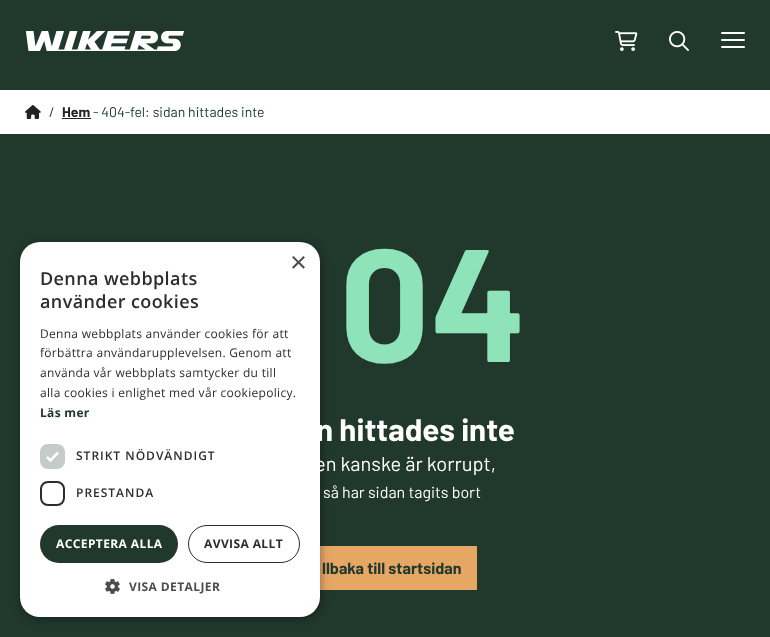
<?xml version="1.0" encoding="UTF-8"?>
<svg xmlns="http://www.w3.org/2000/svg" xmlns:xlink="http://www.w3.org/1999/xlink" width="770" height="637">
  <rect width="100%" height="100%" fill="#ffffff" />
  <rect width="770" height="90" fill="#21382d" />
  <image x="25" y="31" width="160" height="20" xlink:href="image1.png" />
  <image x="615" y="31" width="23" height="20" xlink:href="image2.png" />
  <image x="669" y="31" width="20" height="20" xlink:href="image3.png" />
  <rect x="721" y="32" width="24" height="2" rx="1" fill="#ffffff" />
  <rect x="721" y="39" width="24" height="2" rx="1" fill="#ffffff" />
  <rect x="721" y="46" width="24" height="2" rx="1" fill="#ffffff" />
  <image x="25" y="105" width="16" height="14" xlink:href="image4.png" />
  <rect x="62" y="118" width="29" height="1" fill="#222222" />
  <rect y="134" width="770" height="503" fill="#21382d" />
  <rect x="320" y="546" width="157" height="44" fill="#e6a765" />
  <rect x="21" y="244" width="300" height="375" rx="20" fill="#000000" fill-opacity="0.35" filter="blur(4px)" />
  <rect x="20" y="242" width="300" height="375" rx="20" fill="#ffffff" />
  <rect x="40" y="444" width="25" height="25" rx="8" fill="#c5cbc8" />
  <path d="M 47 457 l 3.5 3.5 l 7.5 -8" fill="none" stroke="#ffffff" stroke-width="2.6" />
  <rect x="41" y="482" width="23" height="23" rx="7" fill="none" stroke="#2d2d2d" stroke-width="2" />
  <rect x="40" y="525" width="138" height="38" rx="19" fill="#21382d" />
  <rect x="188.5" y="525.5" width="111" height="37" rx="18.5" fill="none" stroke="#2d2d2d" />
  <image x="105" y="579" width="15" height="15" xlink:href="image5.png" />
  <text x="49" y="117" style="font-family: Barlow; font-size: 14px; fill: #21382d">/</text>
  <text x="62" y="117" style="font-family: Barlow; font-size: 14px; font-weight: bold; fill: #222222">Hem</text>
  <text x="93" y="117" style="font-family: Barlow; font-size: 14px; fill: #21382d">- 404-fel: sidan hittades inte</text>
  <text x="339" y="362" style="font-family: Barlow; font-size: 160px; font-weight: bold; fill: #8fe3b9">04</text>
  <text x="316" y="441" style="font-family: Barlow; font-size: 31.25px; font-weight: bold; fill: #ffffff">n hittades inte</text>
  <text x="315" y="471" style="font-family: Barlow; font-size: 20px; fill: #ffffff">en kanske är korrupt,</text>
  <text x="323" y="498" style="font-family: Barlow; font-size: 16px; fill: #ffffff">så har sidan tagits bort</text>
  <text x="322" y="574" style="font-family: Barlow; font-size: 16px; font-weight: bold; fill: #21382d">llbaka till startsidan</text>
  <text x="290" y="272" style="font-family: Liberation Sans; font-size: 29px; fill: #4d4d4d">×</text>
  <text x="40" y="285" style="font-family: Open Sans; font-size: 18px; font-weight: 600; letter-spacing: 0.4px; fill: #2d2d2d">Denna webbplats</text>
  <text x="40" y="308" style="font-family: Open Sans; font-size: 18px; font-weight: 600; letter-spacing: 0.4px; fill: #2d2d2d">använder cookies</text>
  <text x="40" y="338" style="font-family: Open Sans; font-size: 12px; letter-spacing: 0.3px; fill: #2d2d2d">Denna webbplats använder cookies för att</text>
  <text x="40" y="357" style="font-family: Open Sans; font-size: 12px; letter-spacing: 0.3px; fill: #2d2d2d">förbättra användarupplevelsen. Genom att</text>
  <text x="40" y="377" style="font-family: Open Sans; font-size: 12px; letter-spacing: 0.3px; fill: #2d2d2d">använda vår webbplats samtycker du till</text>
  <text x="40" y="397" style="font-family: Open Sans; font-size: 12px; letter-spacing: 0.3px; fill: #2d2d2d">alla cookies i enlighet med vår cookiepolicy.</text>
  <text x="40" y="417" style="font-family: Open Sans; font-size: 12px; font-weight: bold; letter-spacing: 0.3px; fill: #21382d">Läs mer</text>
  <text x="76" y="460" style="font-family: Open Sans; font-size: 12px; font-weight: 600; letter-spacing: 1px; fill: #2d2d2d">STRIKT NÖDVÄNDIGT</text>
  <text x="76" y="497" style="font-family: Open Sans; font-size: 12px; font-weight: 600; letter-spacing: 1px; fill: #2d2d2d">PRESTANDA</text>
  <text x="56" y="548" style="font-family: Open Sans; font-size: 12px; font-weight: bold; letter-spacing: 0.4px; fill: #ffffff">ACCEPTERA ALLA</text>
  <text x="204" y="548" style="font-family: Open Sans; font-size: 12px; font-weight: bold; letter-spacing: 0.4px; fill: #2d2d2d">AVVISA ALLT</text>
  <text x="129" y="591" style="font-family: Open Sans; font-size: 12px; font-weight: bold; letter-spacing: 0.4px; fill: #4d4d4d">VISA DETALJER</text>
</svg>
